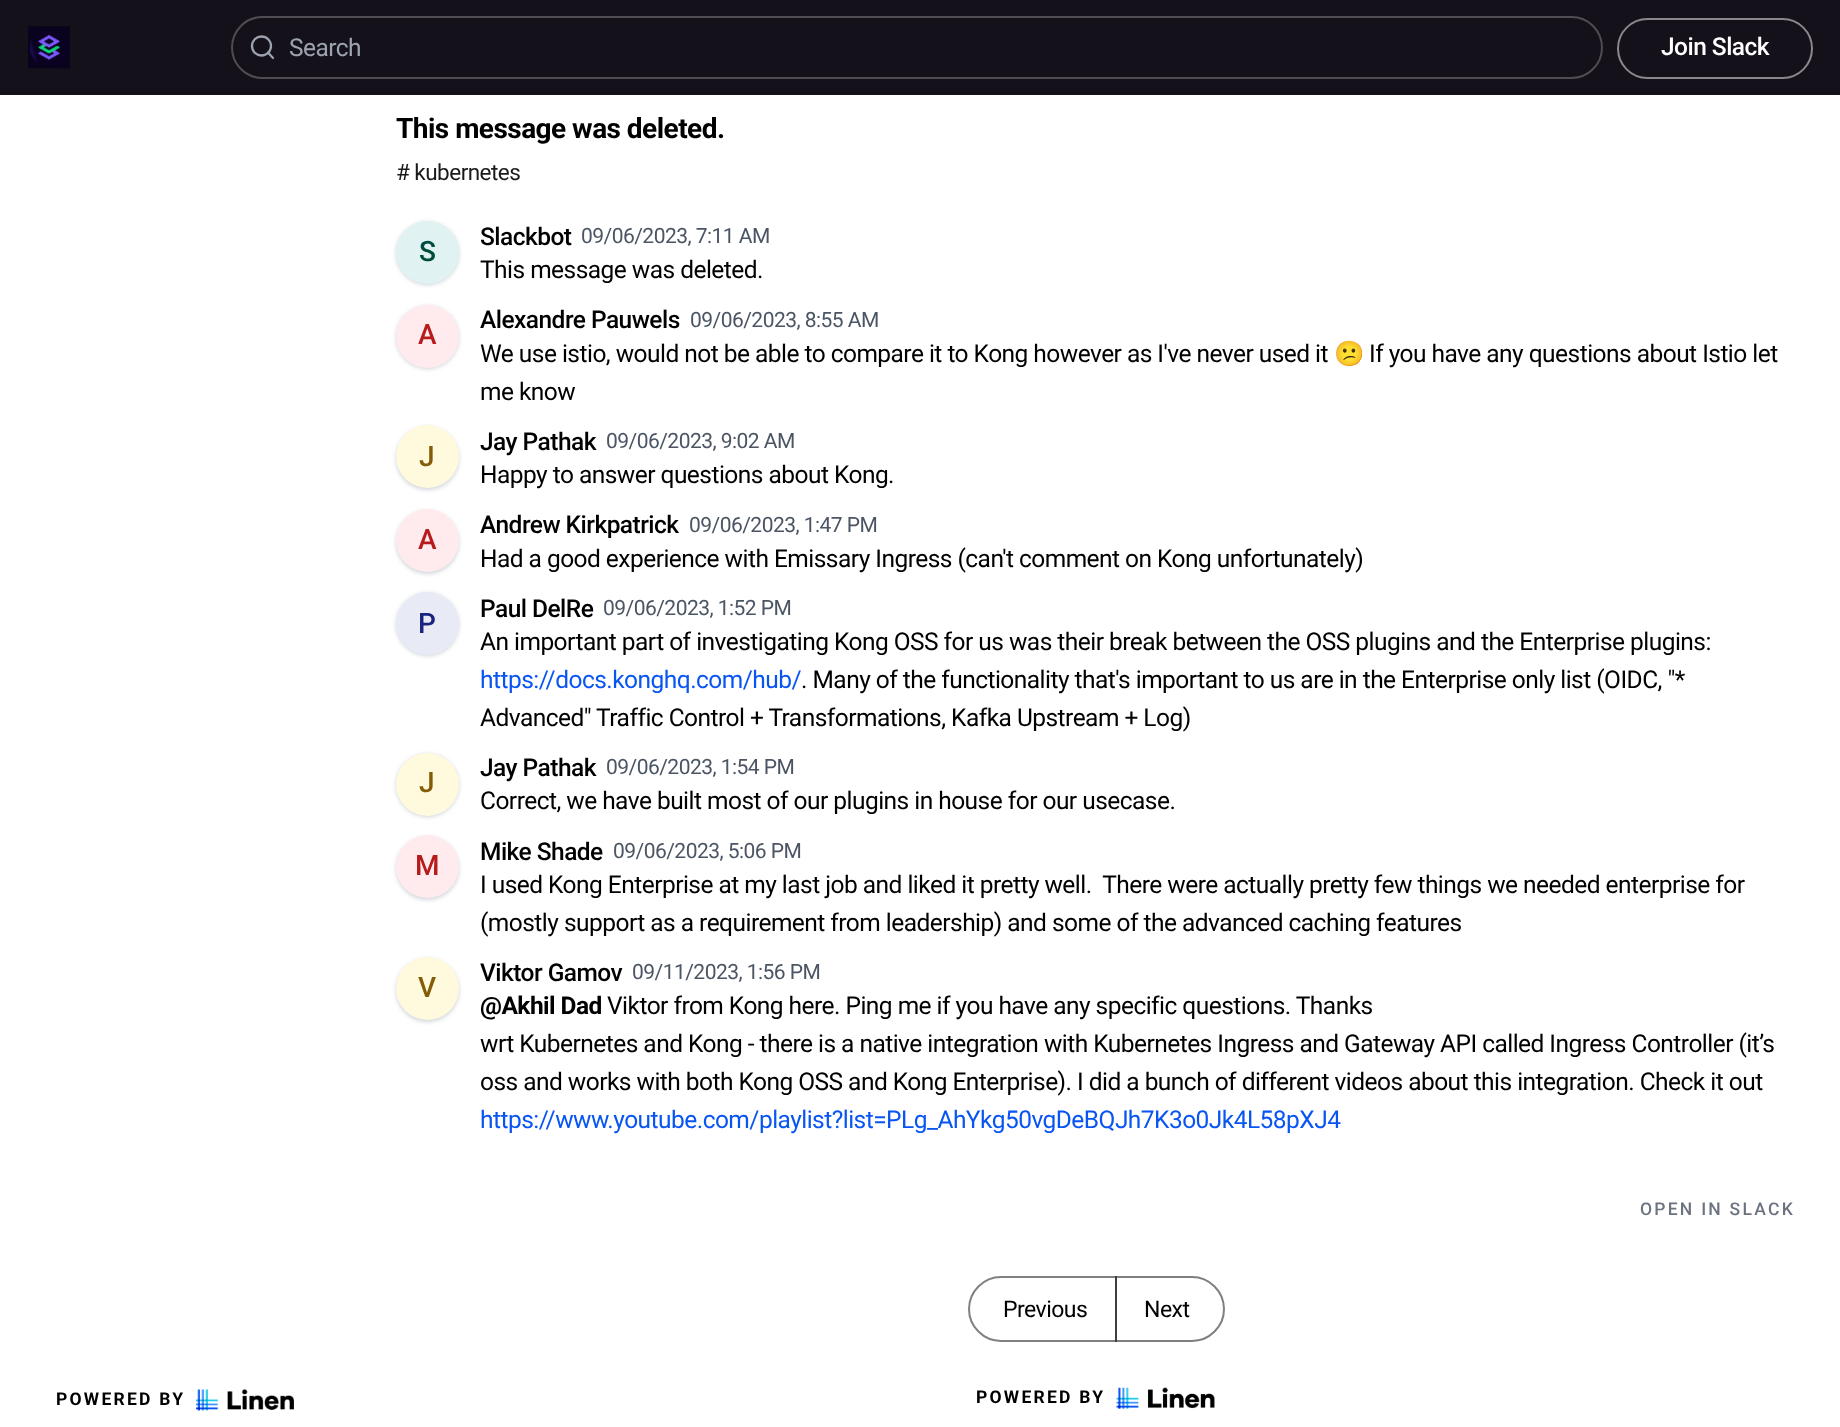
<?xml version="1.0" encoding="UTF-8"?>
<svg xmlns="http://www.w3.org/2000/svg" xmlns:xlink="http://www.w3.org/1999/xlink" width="1840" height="1427">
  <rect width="100%" height="100%" fill="#ffffff" />
  <rect width="1840" height="95" fill="#14111a" />
  <image x="28" y="26" width="42" height="43" xlink:href="image1.png" />
  <rect x="232" y="17" width="1370" height="61" rx="30.5" fill="none" stroke="#4f4d53" stroke-width="2" />
  <circle cx="261.5" cy="46" r="9.5" fill="none" stroke="#9ca3af" stroke-width="2.3" />
  <path d="M 273 58 l -5 -5.5" fill="none" stroke="#9ca3af" stroke-width="2.3" stroke-linecap="round" stroke-linejoin="round" />
  <rect x="1618" y="19" width="194" height="59" rx="29.5" fill="none" stroke="#8a888d" stroke-width="2" />
  <image x="196" y="1389" width="98" height="22" xlink:href="image2.png" />
  <rect x="396" y="222" width="63" height="63" rx="31.5" fill="#d1d5db" filter="blur(2px)" />
  <circle cx="427.5" cy="252.5" r="31.5" fill="#e0f2f1" />
  <rect x="396" y="306" width="63" height="63" rx="31.5" fill="#d1d5db" filter="blur(2px)" />
  <circle cx="427.5" cy="336.5" r="31.5" fill="#ffebee" />
  <rect x="396" y="427" width="63" height="63" rx="31.5" fill="#d1d5db" filter="blur(2px)" />
  <circle cx="427.5" cy="456.5" r="31.5" fill="#fff9de" />
  <rect x="396" y="511" width="63" height="63" rx="31.5" fill="#d1d5db" filter="blur(2px)" />
  <circle cx="427.5" cy="540.5" r="31.5" fill="#ffebee" />
  <rect x="396" y="593" width="63" height="63" rx="31.5" fill="#d1d5db" filter="blur(2px)" />
  <circle cx="427.5" cy="623.5" r="31.5" fill="#e8eaf6" />
  <rect x="396" y="754" width="63" height="63" rx="31.5" fill="#d1d5db" filter="blur(2px)" />
  <circle cx="427.5" cy="784.5" r="31.5" fill="#fff9de" />
  <rect x="396" y="837" width="63" height="63" rx="31.5" fill="#d1d5db" filter="blur(2px)" />
  <circle cx="427.5" cy="866.5" r="31.5" fill="#ffebee" />
  <rect x="396" y="959" width="63" height="63" rx="31.5" fill="#d1d5db" filter="blur(2px)" />
  <circle cx="427.5" cy="988.5" r="31.5" fill="#fff9de" />
  <path d="M 1001 1277 h 115 v 64 h -115 c -17.5 0 -32 -14.5 -32 -32 c 0 -17.5 14.5 -32 32 -32 z" fill="none" stroke="#808080" stroke-width="2" />
  <path d="M 1116 1277 h 76 c 17.5 0 32 14.5 32 32 c 0 17.5 -14.5 32 -32 32 h -76 z" fill="none" stroke="#000000" stroke-opacity="0.5" stroke-width="2" />
  <image x="1116" y="1387" width="99" height="22" xlink:href="image3.png" />
  <text x="289" y="56" style="font-family: Roboto; font-size: 24.5px; letter-spacing: -0.53px; fill: #9ca3af">Search</text>
  <text x="1661" y="55" style="font-family: Roboto; font-size: 24.5px; font-weight: 500; letter-spacing: -0.53px; fill: #ffffff">Join Slack</text>
  <text x="56" y="1405" style="font-family: Roboto; font-size: 17.5px; font-weight: bold; letter-spacing: 2.25px; fill: #000000">POWERED BY</text>
  <text x="396" y="138" style="font-family: Roboto; font-size: 28px; font-weight: bold; letter-spacing: -0.53px; fill: #000000">This message was deleted.</text>
  <text x="396" y="180" style="font-family: Roboto; font-size: 22.5px; letter-spacing: -0.53px; fill: #1a1a1a"># kubernetes</text>
  <text x="419" y="261" style="font-family: Roboto; font-size: 28px; font-weight: 500; letter-spacing: -0.53px; fill: #004d40">S</text>
  <text x="480" y="245" style="font-family: Roboto; font-size: 24.5px; font-weight: 500; letter-spacing: -0.53px; fill: #000000">Slackbot</text>
  <text x="581" y="243" style="font-family: Roboto; font-size: 21px; letter-spacing: -0.53px; fill: #4b5563">09/06/2023, 7:11 AM</text>
  <text x="480" y="278" style="font-family: Roboto; font-size: 24.5px; letter-spacing: -0.53px; fill: #000000">This message was deleted.</text>
  <text x="418" y="344" style="font-family: Roboto; font-size: 28px; font-weight: 500; letter-spacing: -0.53px; fill: #b71c1c">A</text>
  <text x="480" y="328" style="font-family: Roboto; font-size: 24.5px; font-weight: 500; letter-spacing: -0.53px; fill: #000000">Alexandre Pauwels</text>
  <text x="690" y="327" style="font-family: Roboto; font-size: 21px; letter-spacing: -0.53px; fill: #4b5563">09/06/2023, 8:55 AM</text>
  <text x="480" y="362" style="font-family: Roboto; font-size: 24.5px; letter-spacing: -0.53px; fill: #000000">We use istio, would not be able to compare it to Kong however as I've never used it</text>
  <text x="1334" y="362" style="font-family: Noto Color Emoji; font-size: 24.5px; letter-spacing: -0.53px; fill: #000000">😕</text>
  <text x="1369" y="362" style="font-family: Roboto; font-size: 24.5px; letter-spacing: -0.53px; fill: #000000">If you have any questions about Istio let</text>
  <text x="480" y="400" style="font-family: Roboto; font-size: 24.5px; letter-spacing: -0.53px; fill: #000000">me know</text>
  <text x="419" y="466" style="font-family: Roboto; font-size: 28px; font-weight: 500; letter-spacing: -0.53px; fill: #845c07">J</text>
  <text x="480" y="450" style="font-family: Roboto; font-size: 24.5px; font-weight: 500; letter-spacing: -0.53px; fill: #000000">Jay Pathak</text>
  <text x="606" y="448" style="font-family: Roboto; font-size: 21px; letter-spacing: -0.53px; fill: #4b5563">09/06/2023, 9:02 AM</text>
  <text x="480" y="483" style="font-family: Roboto; font-size: 24.5px; letter-spacing: -0.53px; fill: #000000">Happy to answer questions about Kong.</text>
  <text x="418" y="549" style="font-family: Roboto; font-size: 28px; font-weight: 500; letter-spacing: -0.53px; fill: #b71c1c">A</text>
  <text x="480" y="533" style="font-family: Roboto; font-size: 24.5px; font-weight: 500; letter-spacing: -0.53px; fill: #000000">Andrew Kirkpatrick</text>
  <text x="689" y="532" style="font-family: Roboto; font-size: 21px; letter-spacing: -0.53px; fill: #4b5563">09/06/2023, 1:47 PM</text>
  <text x="480" y="567" style="font-family: Roboto; font-size: 24.5px; letter-spacing: -0.53px; fill: #000000">Had a good experience with Emissary Ingress (can't comment on Kong unfortunately)</text>
  <text x="418" y="633" style="font-family: Roboto; font-size: 28px; font-weight: 500; letter-spacing: -0.53px; fill: #1a237e">P</text>
  <text x="480" y="617" style="font-family: Roboto; font-size: 24.5px; font-weight: 500; letter-spacing: -0.53px; fill: #000000">Paul DelRe</text>
  <text x="603" y="615" style="font-family: Roboto; font-size: 21px; letter-spacing: -0.53px; fill: #4b5563">09/06/2023, 1:52 PM</text>
  <text x="480" y="650" style="font-family: Roboto; font-size: 24.5px; letter-spacing: -0.53px; fill: #000000">An important part of investigating Kong OSS for us was their break between the OSS plugins and the Enterprise plugins:</text>
  <text x="480" y="688" style="font-family: Roboto; font-size: 24.5px; letter-spacing: -0.53px; fill: #0855f4">https://docs.konghq.com/hub/</text>
  <text x="801" y="688" style="font-family: Roboto; font-size: 24.5px; letter-spacing: -0.53px; fill: #000000">. Many of the functionality that's important to us are in the Enterprise only list (OIDC, "*</text>
  <text x="480" y="726" style="font-family: Roboto; font-size: 24.5px; letter-spacing: -0.53px; fill: #000000">Advanced" Traffic Control + Transformations, Kafka Upstream + Log)</text>
  <text x="419" y="792" style="font-family: Roboto; font-size: 28px; font-weight: 500; letter-spacing: -0.53px; fill: #845c07">J</text>
  <text x="480" y="776" style="font-family: Roboto; font-size: 24.5px; font-weight: 500; letter-spacing: -0.53px; fill: #000000">Jay Pathak</text>
  <text x="606" y="774" style="font-family: Roboto; font-size: 21px; letter-spacing: -0.53px; fill: #4b5563">09/06/2023, 1:54 PM</text>
  <text x="480" y="809" style="font-family: Roboto; font-size: 24.5px; letter-spacing: -0.53px; fill: #000000">Correct, we have built most of our plugins in house for our usecase.</text>
  <text x="415" y="875" style="font-family: Roboto; font-size: 28px; font-weight: 500; letter-spacing: -0.53px; fill: #b71c1c">M</text>
  <text x="480" y="860" style="font-family: Roboto; font-size: 24.5px; font-weight: 500; letter-spacing: -0.53px; fill: #000000">Mike Shade</text>
  <text x="613" y="858" style="font-family: Roboto; font-size: 21px; letter-spacing: -0.53px; fill: #4b5563">09/06/2023, 5:06 PM</text>
  <text x="480" y="893" style="font-family: Roboto; font-size: 24.5px; letter-spacing: -0.53px; fill: #000000" xml:space="preserve">I used Kong Enterprise at my last job and liked it pretty well.  There were actually pretty few things we needed enterprise for</text>
  <text x="480" y="931" style="font-family: Roboto; font-size: 24.5px; letter-spacing: -0.53px; fill: #000000">(mostly support as a requirement from leadership) and some of the advanced caching features</text>
  <text x="418" y="997" style="font-family: Roboto; font-size: 28px; font-weight: 500; letter-spacing: -0.53px; fill: #845c07">V</text>
  <text x="480" y="981" style="font-family: Roboto; font-size: 24.5px; font-weight: 500; letter-spacing: -0.53px; fill: #000000">Viktor Gamov</text>
  <text x="632" y="979" style="font-family: Roboto; font-size: 21px; letter-spacing: -0.53px; fill: #4b5563">09/11/2023, 1:56 PM</text>
  <text x="480" y="1014" style="font-family: Roboto; font-size: 24.5px; font-weight: bold; letter-spacing: -0.53px; fill: #000000">@Akhil Dad</text>
  <text x="607" y="1014" style="font-family: Roboto; font-size: 24.5px; letter-spacing: -0.53px; fill: #000000">Viktor from Kong here. Ping me if you have any specific questions. Thanks</text>
  <text x="480" y="1052" style="font-family: Roboto; font-size: 24.5px; letter-spacing: -0.53px; fill: #000000">wrt Kubernetes and Kong - there is a native integration with Kubernetes Ingress and Gateway API called Ingress Controller (it’s</text>
  <text x="480" y="1090" style="font-family: Roboto; font-size: 24.5px; letter-spacing: -0.53px; fill: #000000">oss and works with both Kong OSS and Kong Enterprise). I did a bunch of different videos about this integration. Check it out</text>
  <text x="480" y="1128" style="font-family: Roboto; font-size: 24.5px; letter-spacing: -0.53px; fill: #0855f4">https://www.youtube.com/playlist?list=PLg_AhYkg50vgDeBQJh7K3o0Jk4L58pXJ4</text>
  <text x="1640" y="1215" style="font-family: Roboto; font-size: 17.5px; font-weight: 500; letter-spacing: 2.25px; fill: #6b7280">OPEN IN SLACK</text>
  <text x="1003" y="1317" style="font-family: Roboto; font-size: 23px; letter-spacing: -0.53px; fill: #000000">Previous</text>
  <text x="1144" y="1317" style="font-family: Roboto; font-size: 23px; letter-spacing: -0.53px; fill: #000000">Next</text>
  <text x="976" y="1403" style="font-family: Roboto; font-size: 17.5px; font-weight: bold; letter-spacing: 2.25px; fill: #000000">POWERED BY</text>
</svg>
